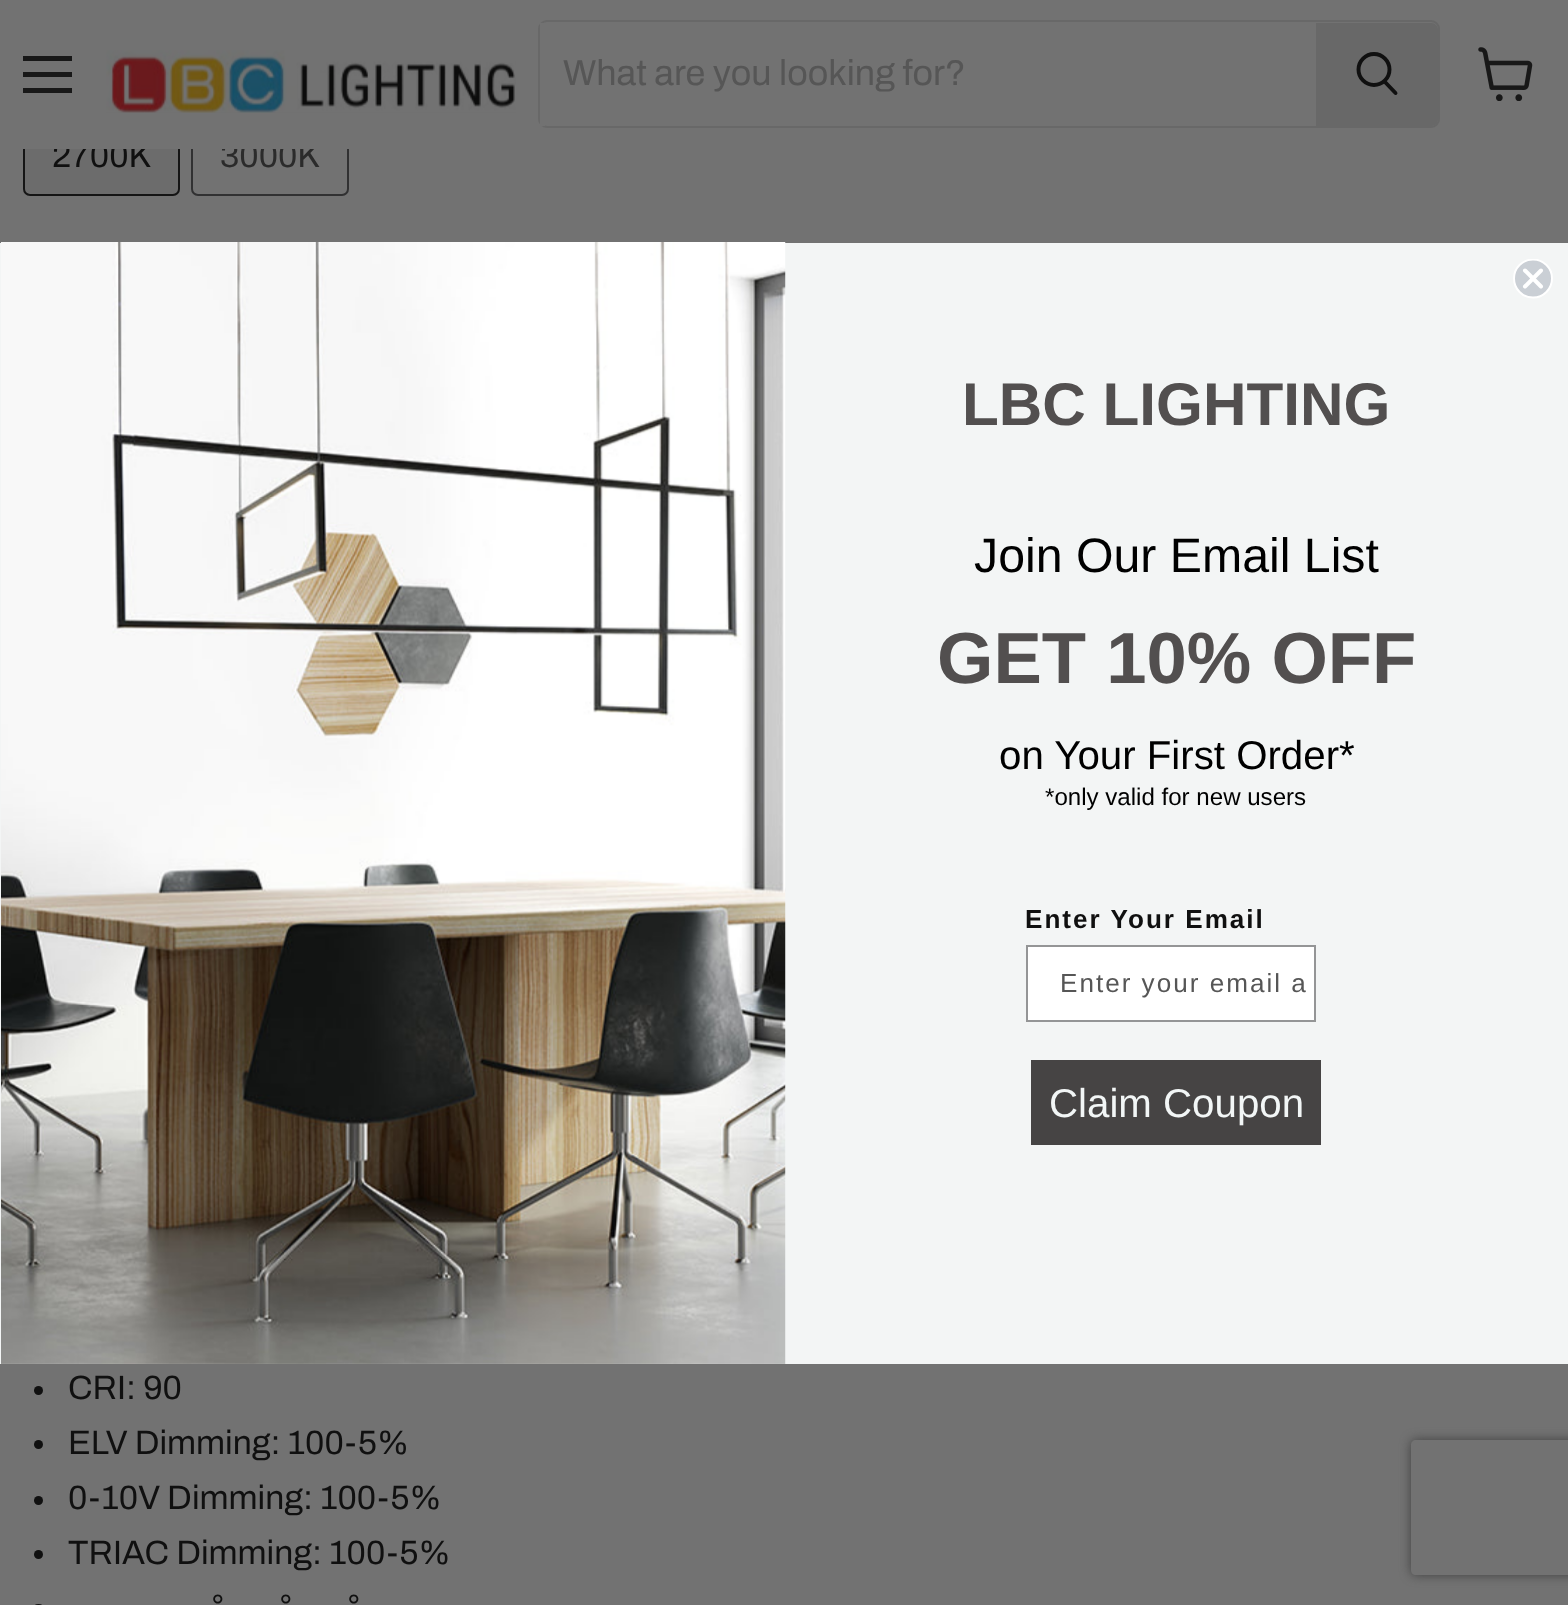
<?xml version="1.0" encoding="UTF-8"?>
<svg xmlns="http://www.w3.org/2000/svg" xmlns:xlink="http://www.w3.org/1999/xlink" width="1568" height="1605">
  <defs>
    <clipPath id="clip1"><rect x="1512" y="259" width="41" height="40" /></clipPath>
    <clipPath id="clip2"><path d="M 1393 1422 h 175 v 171 h -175 z m 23 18 h 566 c 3 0 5 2 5 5 v 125 c 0 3 -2 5 -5 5 h -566 c -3 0 -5 -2 -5 -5 v -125 c 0 -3 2 -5 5 -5 z" clip-rule="evenodd" /></clipPath>
  </defs>
  <rect width="100%" height="100%" fill="#727272" />
  <rect x="23" y="56" width="49" height="5" fill="#181818" />
  <rect x="23" y="72" width="49" height="5" fill="#181818" />
  <rect x="23" y="88" width="49" height="5" fill="#181818" />
  <image x="106" y="50" width="410" height="63" xlink:href="image1.png" />
  <rect x="539" y="21" width="900" height="106" rx="8" fill="none" stroke="#686868" stroke-width="2" />
  <rect x="540" y="23" width="5" height="103" fill="#727272" />
  <path d="M 1316 23 h 115 c 4 0 7 3 7 7 v 89 c 0 4 -3 7 -7 7 h -115 z" fill="#686868" />
  <path d="M 1395.5 93 l -10.5 -11" fill="none" stroke="#101010" stroke-width="3.9" stroke-linecap="round" />
  <circle cx="1374" cy="69.5" r="15.5" fill="none" stroke="#101010" stroke-width="3.9" />
  <image x="1478" y="47" width="55" height="54" xlink:href="image2.png" />
  <rect x="24" y="118" width="155" height="77" rx="6" fill="#6c6c6c" stroke="#151515" stroke-width="2" />
  <rect x="192" y="118" width="156" height="77" rx="6" fill="none" stroke="#313132" stroke-width="2" />
  <circle cx="38.5" cy="1390.5" r="4.5" fill="#101010" />
  <circle cx="38.5" cy="1444.5" r="4.5" fill="#101010" />
  <circle cx="38.5" cy="1500.5" r="4.5" fill="#101010" />
  <circle cx="38.5" cy="1554.5" r="4.5" fill="#101010" />
  <rect x="34" y="1604" width="9" height="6" rx="4.5" fill="#101010" />
  <rect y="243" width="1568" height="1121" fill="#f3f5f5" />
  <circle cx="1533" cy="278.5" r="19" fill="#cacfd5" />
  <g clip-path="url(#clip1)">
    <circle cx="1533" cy="278.5" r="19" fill="none" stroke="#ffffff" stroke-width="2" />
  </g>
  <path d="M 1525 270.5 l 16 16 m -16 0 l 16 -16 z" fill="none" stroke="#ffffff" stroke-width="4" stroke-linecap="round" stroke-linejoin="round" />
  <image x="1" y="242" width="785" height="1122" xlink:href="image3.png" />
  <rect x="1027" y="946" width="288" height="75" fill="#ffffff" stroke="#949596" stroke-width="2" />
  <rect x="1031" y="1060" width="290" height="85" fill="#464444" />
  <g clip-path="url(#clip2)">
    <rect x="1411" y="1440" width="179" height="135" rx="5" fill="#3f3f3f" filter="blur(5.5px)" />
  </g>
  <text x="563" y="85" style="font-family: Archivo; font-size: 36px; fill: #565656">What are you looking for?</text>
  <text x="52" y="167" style="font-family: Archivo; font-size: 33.75px; fill: #101010">2700K</text>
  <text x="220" y="167" style="font-family: Archivo; font-size: 33.75px; fill: #2b2b2b">3000K</text>
  <rect x="23" y="117" width="326" height="32" fill="#727272" />
  <text x="68" y="1399" style="font-family: Archivo; font-size: 33.75px; fill: #101010">CRI: 90</text>
  <text x="68" y="1454" style="font-family: Archivo; font-size: 33.75px; fill: #101010">ELV Dimming: 100-5%</text>
  <text x="68" y="1509" style="font-family: Archivo; font-size: 33.75px; fill: #101010">0-10V Dimming: 100-5%</text>
  <text x="68" y="1564" style="font-family: Archivo; font-size: 33.75px; fill: #101010">TRIAC Dimming: 100-5%</text>
  <text x="211" y="1618" style="font-family: Archivo; font-size: 33.75px; fill: #101010">°</text>
  <text x="279" y="1618" style="font-family: Archivo; font-size: 33.75px; fill: #101010">°</text>
  <text x="347" y="1618" style="font-family: Archivo; font-size: 33.75px; fill: #101010">°</text>
  <text x="962" y="425" style="font-family: Liberation Sans; font-size: 60.25px; font-weight: bold; fill: #524f4f">LBC LIGHTING</text>
  <text x="974" y="572" style="font-family: Liberation Sans; font-size: 48.25px; fill: #000000">Join Our Email List</text>
  <text x="937" y="683" style="font-family: Liberation Sans; font-size: 72.5px; font-weight: bold; fill: #524f4f">GET 10% OFF</text>
  <text x="999" y="769" style="font-family: Liberation Sans; font-size: 40.25px; fill: #000000">on Your First Order*</text>
  <text x="1045" y="805" style="font-family: Liberation Sans; font-size: 24.1px; fill: #000000">*only valid for new users</text>
  <text x="1025" y="928" style="font-family: Liberation Sans; font-size: 26.1px; font-weight: bold; letter-spacing: 2px; fill: #101010">Enter Your Email</text>
  <text x="1060" y="992" style="font-family: Liberation Sans; font-size: 26.1px; letter-spacing: 2px; fill: #565656">Enter your email a</text>
  <text x="1049" y="1117" style="font-family: Liberation Sans; font-size: 40.25px; fill: #f2f6f6">Claim Coupon</text>
</svg>
